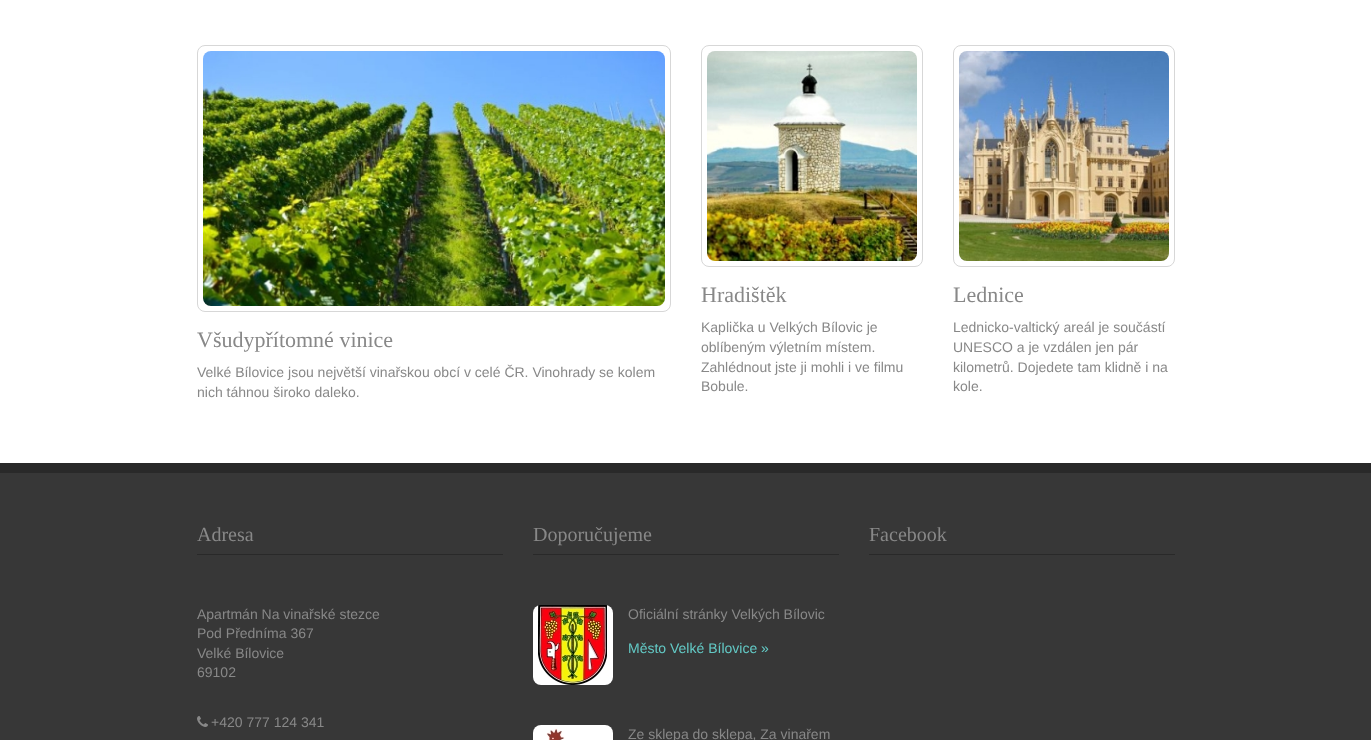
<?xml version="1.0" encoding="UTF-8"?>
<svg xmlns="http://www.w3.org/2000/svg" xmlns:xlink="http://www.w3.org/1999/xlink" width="1371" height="740">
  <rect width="100%" height="100%" fill="#ffffff" />
  <rect x="197.5" y="45.5" width="473" height="266" rx="7.5" fill="none" stroke="#d7d7d7" />
  <image x="203" y="51" width="462" height="255" xlink:href="image1.png" />
  <rect x="701.5" y="45.5" width="221" height="221" rx="7.5" fill="none" stroke="#d7d7d7" />
  <image x="707" y="51" width="210" height="210" xlink:href="image2.png" />
  <rect x="953.5" y="45.5" width="221" height="221" rx="7.5" fill="none" stroke="#d7d7d7" />
  <image x="959" y="51" width="210" height="210" xlink:href="image3.png" />
  <rect y="473" width="1371" height="267" fill="#373737" />
  <rect y="463" width="1371" height="10" fill="#292929" />
  <rect x="197" y="554" width="306" height="1" fill="#292929" />
  <image x="197" y="716" width="11" height="11" xlink:href="image4.png" />
  <rect x="533" y="554" width="306" height="1" fill="#292929" />
  <image x="533" y="605" width="80" height="80" xlink:href="image5.png" />
  <image x="533" y="725" width="80" height="15" xlink:href="image6.png" />
  <rect x="869" y="554" width="306" height="1" fill="#292929" />
  <text x="197" y="347" style="font-family: Liberation Serif; font-size: 22px; fill: #888888">Všudypřítomné vinice</text>
  <text x="197" y="377" style="font-family: Liberation Sans; font-size: 14px; fill: #888888">Velké Bílovice jsou největší vinařskou obcí v celé ČR. Vinohrady se kolem</text>
  <text x="197" y="397" style="font-family: Liberation Sans; font-size: 14px; fill: #888888">nich táhnou široko daleko.</text>
  <text x="701" y="302" style="font-family: Liberation Serif; font-size: 22px; fill: #888888">Hradištěk</text>
  <text x="701" y="332" style="font-family: Liberation Sans; font-size: 14px; fill: #888888">Kaplička u Velkých Bílovic je</text>
  <text x="701" y="352" style="font-family: Liberation Sans; font-size: 14px; fill: #888888">oblíbeným výletním místem.</text>
  <text x="701" y="372" style="font-family: Liberation Sans; font-size: 14px; fill: #888888">Zahlédnout jste ji mohli i ve filmu</text>
  <text x="701" y="391" style="font-family: Liberation Sans; font-size: 14px; fill: #888888">Bobule.</text>
  <text x="953" y="302" style="font-family: Liberation Serif; font-size: 22px; fill: #888888">Lednice</text>
  <text x="953" y="332" style="font-family: Liberation Sans; font-size: 14px; fill: #888888">Lednicko-valtický areál je součástí</text>
  <text x="953" y="352" style="font-family: Liberation Sans; font-size: 14px; fill: #888888">UNESCO a je vzdálen jen pár</text>
  <text x="953" y="372" style="font-family: Liberation Sans; font-size: 14px; fill: #888888">kilometrů. Dojedete tam klidně i na</text>
  <text x="953" y="391" style="font-family: Liberation Sans; font-size: 14px; fill: #888888">kole.</text>
  <text x="197" y="541" style="font-family: Liberation Serif; font-size: 20px; fill: #888888">Adresa</text>
  <text x="197" y="619" style="font-family: Liberation Sans; font-size: 14px; fill: #888888">Apartmán Na vinařské stezce</text>
  <text x="197" y="638" style="font-family: Liberation Sans; font-size: 14px; fill: #888888">Pod Předníma 367</text>
  <text x="197" y="658" style="font-family: Liberation Sans; font-size: 14px; fill: #888888">Velké Bílovice</text>
  <text x="197" y="677" style="font-family: Liberation Sans; font-size: 14px; fill: #888888">69102</text>
  <text x="211" y="727" style="font-family: Liberation Sans; font-size: 14px; fill: #888888">+420 777 124 341</text>
  <text x="533" y="541" style="font-family: Liberation Serif; font-size: 20px; fill: #888888">Doporučujeme</text>
  <text x="628" y="619" style="font-family: Liberation Sans; font-size: 14px; fill: #888888">Oficiální stránky Velkých Bílovic</text>
  <text x="628" y="653" style="font-family: Liberation Sans; font-size: 14px; fill: #63cac6">Město Velké Bílovice »</text>
  <text x="628" y="739" style="font-family: Liberation Sans; font-size: 14px; fill: #888888">Ze sklepa do sklepa, Za vinařem</text>
  <text x="869" y="541" style="font-family: Liberation Serif; font-size: 20px; fill: #888888">Facebook</text>
</svg>
